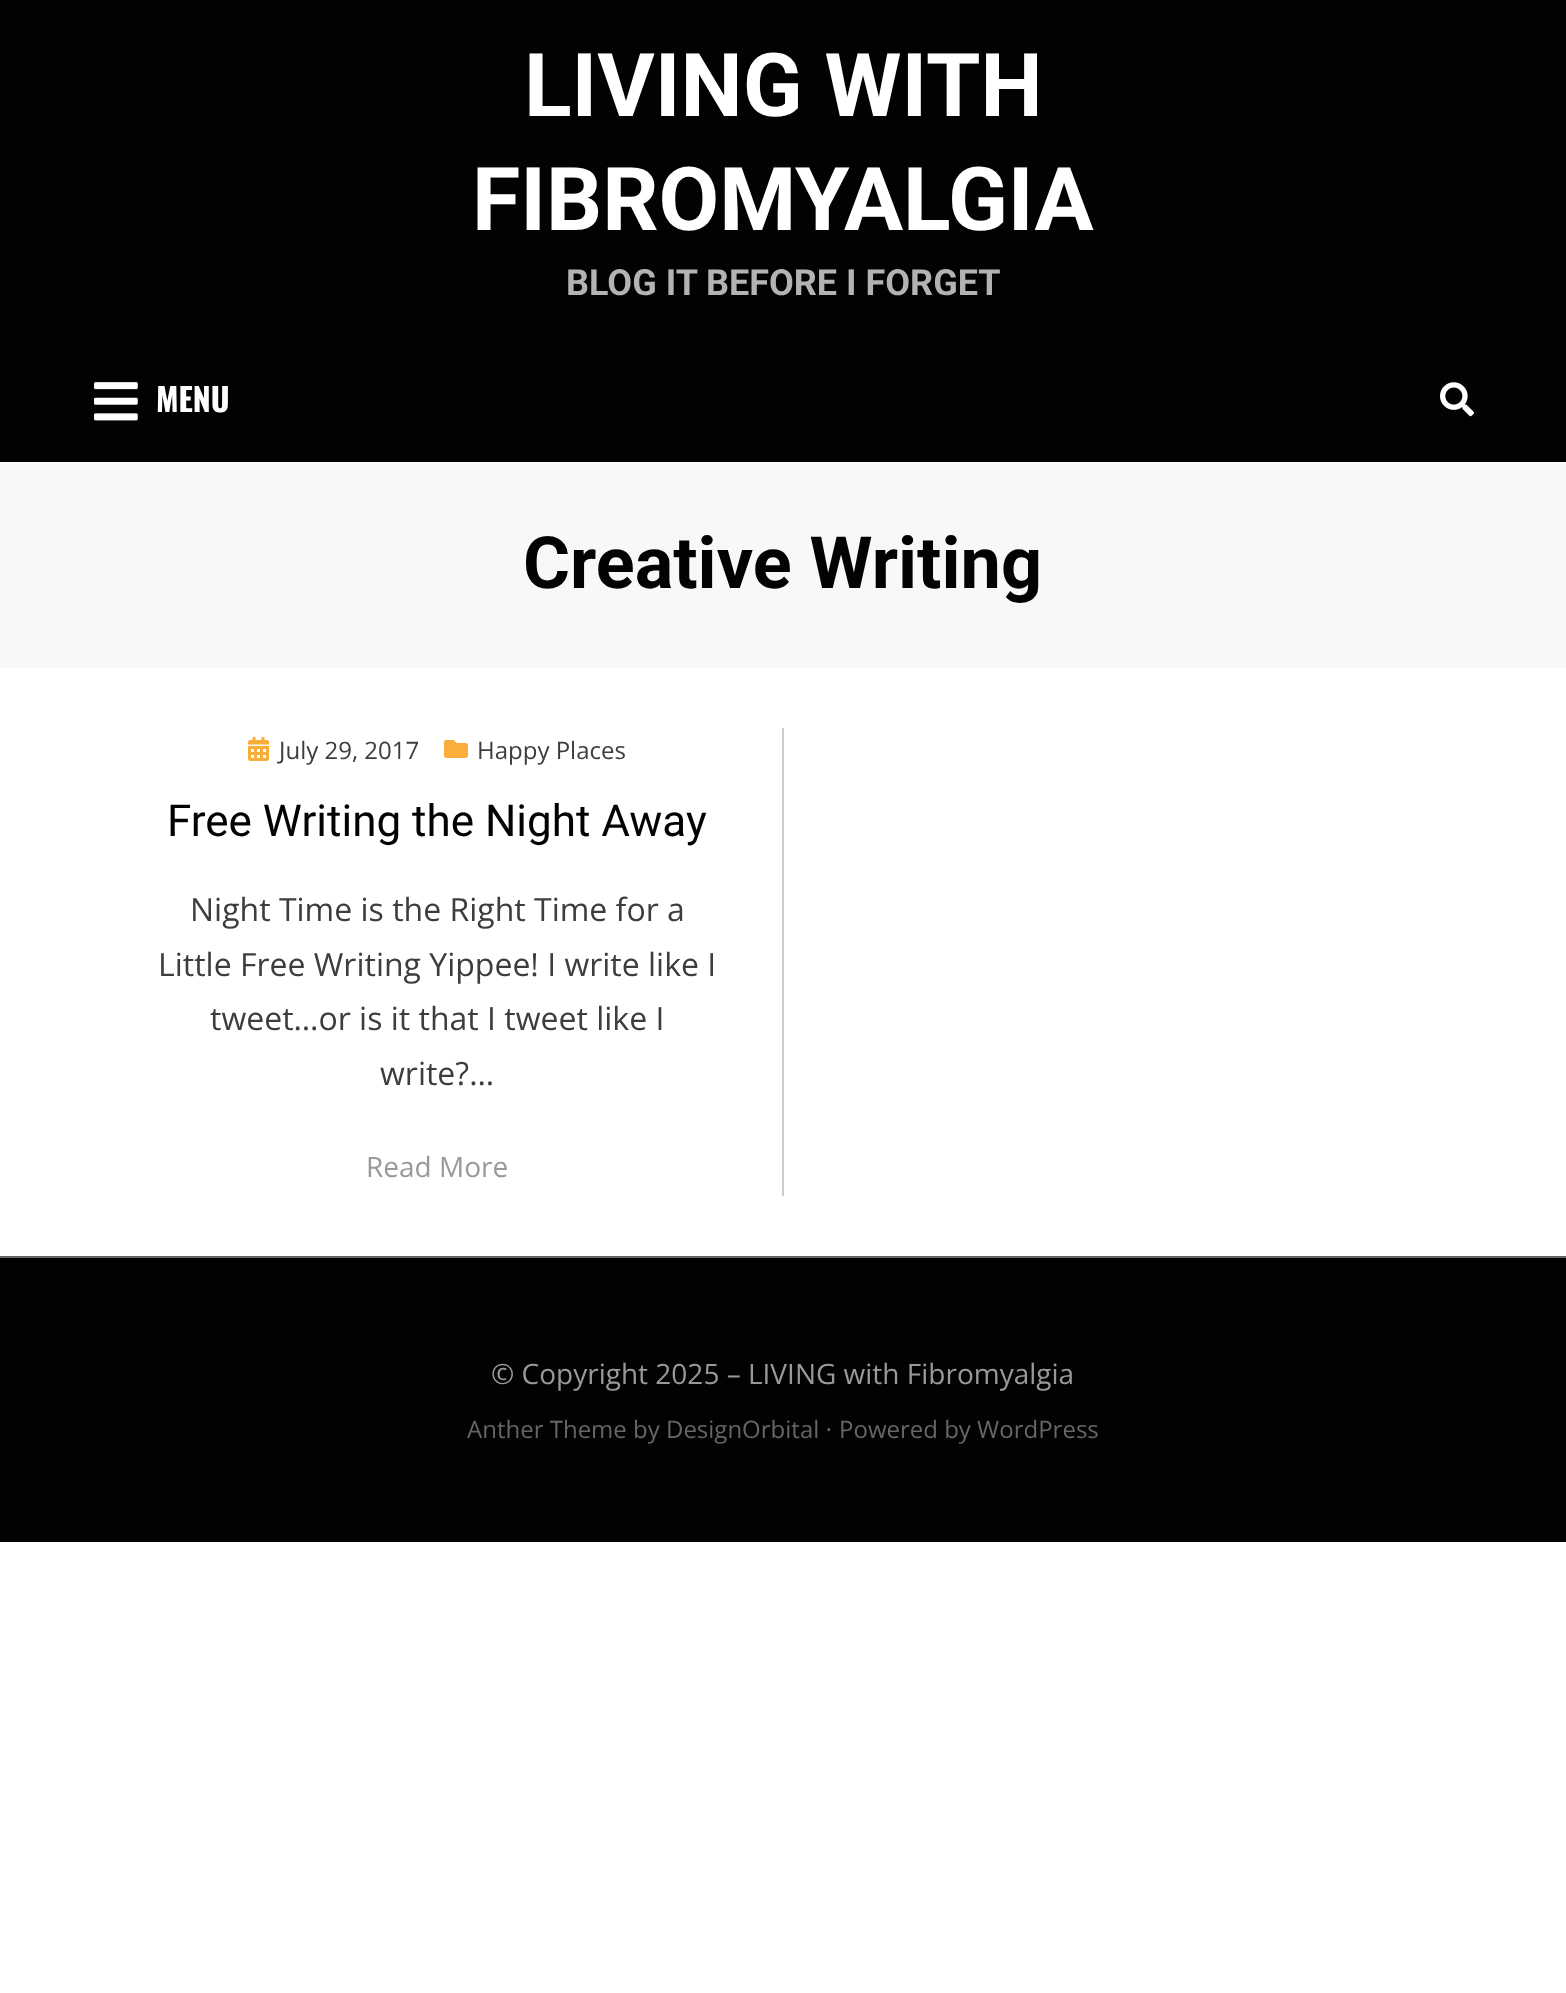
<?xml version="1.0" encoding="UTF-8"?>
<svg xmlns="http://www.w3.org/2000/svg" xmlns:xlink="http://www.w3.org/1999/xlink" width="1566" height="1993">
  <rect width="100%" height="100%" fill="#ffffff" />
  <rect width="1566" height="462" fill="#020202" />
  <image x="94" y="382" width="44" height="39" xlink:href="image1.png" />
  <image x="1440" y="382" width="34" height="35" xlink:href="image2.png" />
  <rect y="462" width="1566" height="206" fill="#f8f8f8" />
  <rect x="782" y="728" width="2" height="468" fill="#cccccc" />
  <image x="248" y="737" width="21" height="24" xlink:href="image3.png" />
  <image x="444" y="740" width="24" height="18" xlink:href="image4.png" />
  <rect y="1258" width="1566" height="284" fill="#020202" />
  <rect y="1256" width="1566" height="2" fill="#666666" />
  <text x="524" y="116" style="font-family: Roboto; font-size: 88px; font-weight: bold; fill: #ffffff">LIVING WITH</text>
  <text x="472" y="230" style="font-family: Roboto; font-size: 88px; font-weight: bold; fill: #ffffff">FIBROMYALGIA</text>
  <text x="566" y="295" style="font-family: Roboto; font-size: 36px; font-weight: bold; fill: #b3b3b3">BLOG IT BEFORE I FORGET</text>
  <text x="156" y="412" style="font-family: Oswald; font-size: 32px; font-weight: bold; fill: #ffffff">MENU</text>
  <text x="523" y="588" style="font-family: Roboto; font-size: 72px; font-weight: bold; fill: #020202">Creative Writing</text>
  <text x="279" y="759" style="font-family: Open Sans; font-size: 24px; fill: #3d3d3d">July 29, 2017</text>
  <text x="477" y="759" style="font-family: Open Sans; font-size: 24px; fill: #3d3d3d">Happy Places</text>
  <text x="167" y="836" style="font-family: Roboto; font-size: 44px; fill: #020202">Free Writing the Night Away</text>
  <text x="190" y="921" style="font-family: Open Sans; font-size: 32px; fill: #3d3d3d">Night Time is the Right Time for a</text>
  <text x="158" y="976" style="font-family: Open Sans; font-size: 32px; fill: #3d3d3d">Little Free Writing Yippee! I write like I</text>
  <text x="210" y="1030" style="font-family: Open Sans; font-size: 32px; fill: #3d3d3d">tweet…or is it that I tweet like I</text>
  <text x="380" y="1085" style="font-family: Open Sans; font-size: 32px; fill: #3d3d3d">write?…</text>
  <text x="366" y="1177" style="font-family: Open Sans; font-size: 28px; fill: #999999">Read More</text>
  <text x="491" y="1384" style="font-family: Open Sans; font-size: 28px; fill: #999999">© Copyright 2025 – LIVING with Fibromyalgia</text>
  <text x="467" y="1438" style="font-family: Open Sans; font-size: 24px; fill: #666666">Anther Theme by DesignOrbital</text>
  <text x="825" y="1438" style="font-family: DejaVu Sans; font-size: 24px; fill: #666666">⋅</text>
  <text x="839" y="1438" style="font-family: Open Sans; font-size: 24px; fill: #666666">Powered by WordPress</text>
</svg>
